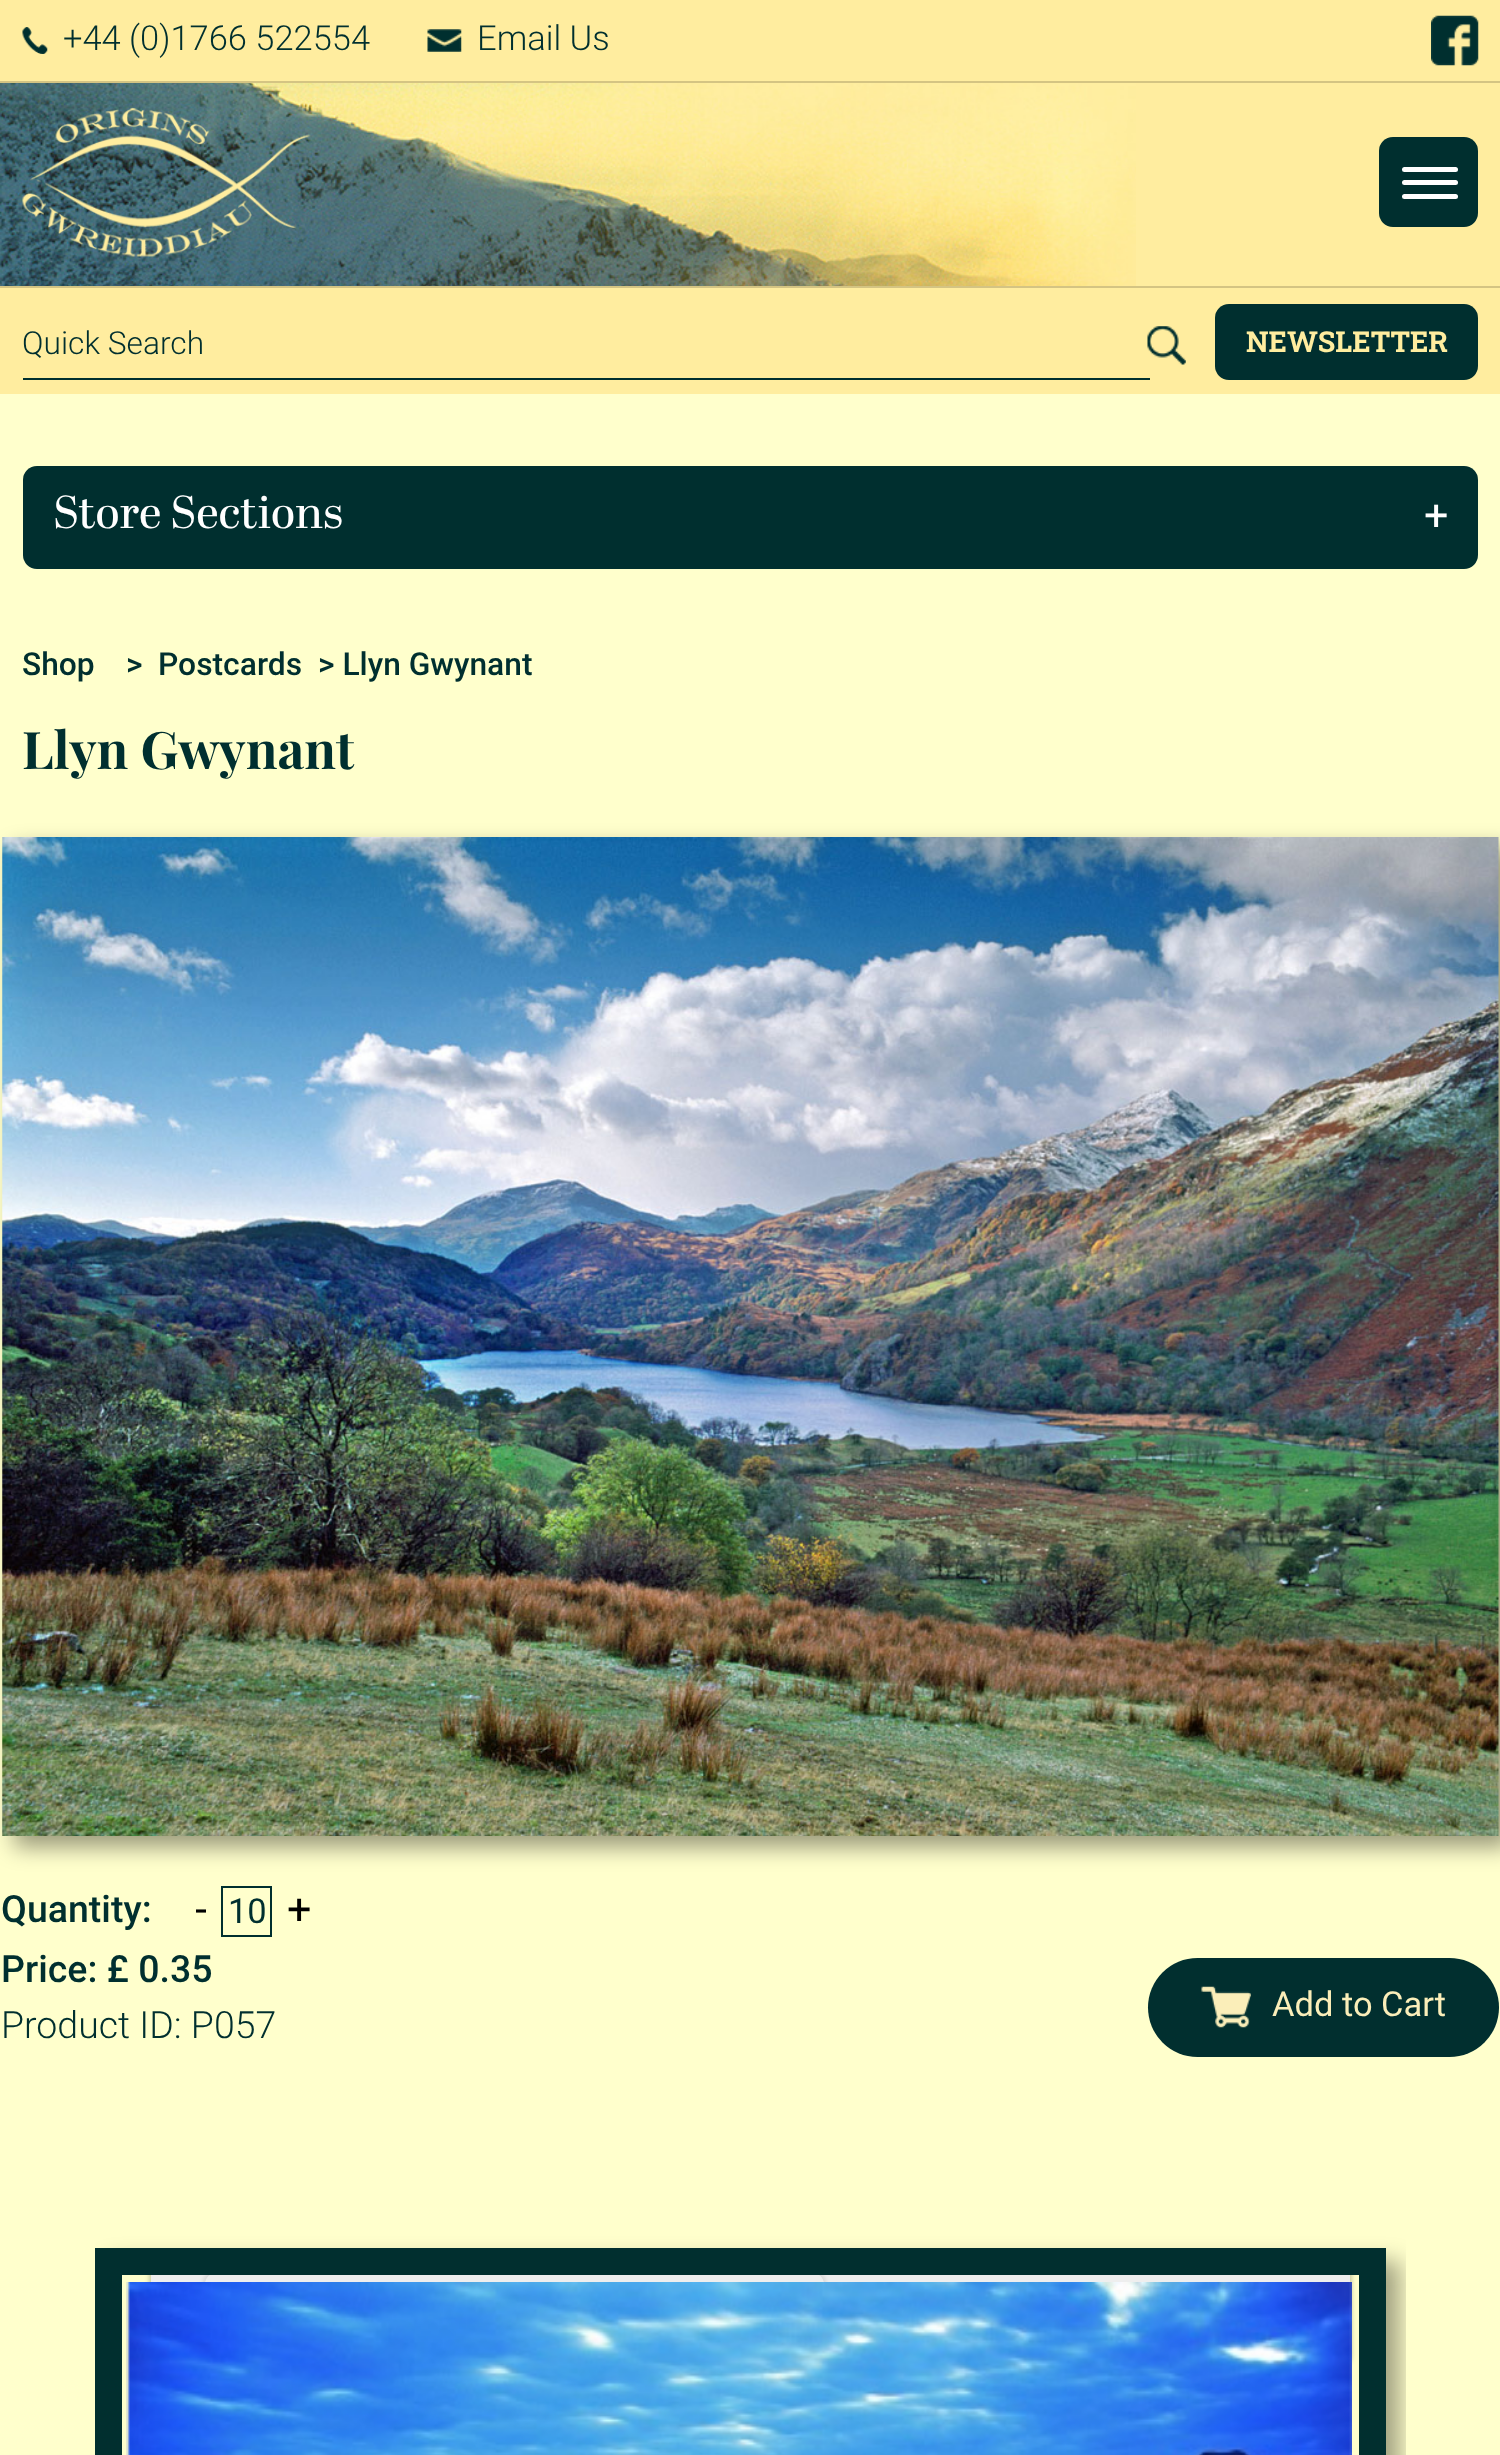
<?xml version="1.0" encoding="UTF-8"?>
<svg xmlns="http://www.w3.org/2000/svg" xmlns:xlink="http://www.w3.org/1999/xlink" width="1500" height="2455">
  <defs>
    <clipPath id="clip1"><rect x="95" y="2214" width="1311" height="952" /></clipPath>
    <clipPath id="clip2"><path d="M 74 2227 h 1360 v 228 h -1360 z m 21 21 h 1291 v 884 h -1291 z" clip-rule="evenodd" /></clipPath>
    <clipPath id="clip3"><path d="M 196 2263 h 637 v 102 h -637 z m 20 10 h 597 c 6 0 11 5 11 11 v 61 c 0 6 -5 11 -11 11 h -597 c -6 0 -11 -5 -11 -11 v -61 c 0 -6 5 -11 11 -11 z" clip-rule="evenodd" /></clipPath>
    <clipPath id="clip4"><rect x="196" y="1879" width="11" height="65" /></clipPath>
  </defs>
  <rect width="100%" height="100%" fill="#ffffcc" />
  <rect x="1136" y="83" width="364" height="203" fill="#ffed9f" />
  <image x="0" y="83" width="1136" height="203" xlink:href="image1.png" />
  <rect width="1500" height="81" fill="#ffed9f" />
  <rect y="81" width="1500" height="2" fill="#d4c483" />
  <image x="22" y="27" width="26" height="27" xlink:href="image2.png" />
  <image x="427" y="29" width="35" height="23" xlink:href="image3.png" />
  <image x="1431" y="15" width="48" height="51" xlink:href="image4.png" />
  <rect y="288" width="1500" height="106" fill="#ffed9f" />
  <rect y="286" width="1500" height="2" fill="#d4c483" />
  <rect x="23" y="378" width="1127" height="2" fill="#002f2f" />
  <image x="1147" y="326" width="39" height="39" xlink:href="image5.png" />
  <rect x="1215" y="304" width="263" height="76" rx="14" fill="#002f2f" />
  <image x="22" y="108" width="289" height="149" xlink:href="image6.png" />
  <rect x="1379" y="137" width="99" height="90" rx="14" fill="#002f2f" />
  <rect x="1402" y="167" width="56" height="5" rx="2.5" fill="#ffffff" />
  <rect x="1402" y="180" width="56" height="5" rx="2.5" fill="#ffffff" />
  <rect x="1402" y="194" width="56" height="5" rx="2.5" fill="#ffffff" />
  <rect x="23" y="466" width="1455" height="103" rx="14" fill="#002f2f" />
  <rect x="14" y="848" width="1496" height="999" fill="#000000" fill-opacity="0.4" filter="blur(11px)" />
  <image x="2" y="837" width="1497" height="999" xlink:href="image7.png" />
  <rect x="222" y="1887" width="49" height="49" fill="none" stroke="#002f2f" stroke-width="2" />
  <rect x="1148" y="1958" width="351" height="99" rx="49.5" fill="#012f2f" />
  <image x="1201" y="1986" width="50" height="42" xlink:href="image8.png" />
  <rect x="149" y="2259" width="1203" height="110" rx="14" fill="#000000" fill-opacity="0.2" filter="blur(2px)" />
  <rect x="151" y="2261" width="1199" height="106" rx="11" fill="#eeeeee" />
  <g clip-path="url(#clip1)">
    <g clip-path="url(#clip2)">
      <rect x="108" y="2261" width="1292" height="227" fill="#000000" fill-opacity="0.36" filter="blur(11px)" />
    </g>
  </g>
  <g clip-path="url(#clip3)">
    <rect x="203" y="2270" width="623" height="88" rx="14" fill="#000000" fill-opacity="0.1" filter="blur(2px)" />
  </g>
  <rect x="108.5" y="2261.5" width="1264" height="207" fill="none" stroke="#012f2f" stroke-width="27" />
  <image x="126" y="2282" width="1226" height="173" xlink:href="image9.png" />
  <text x="63" y="50" style="font-family: Roboto; font-size: 34.5px; font-weight: 300; fill: #002f2f">+44 (0)1766 522554</text>
  <text x="477" y="50" style="font-family: Roboto; font-size: 34.5px; font-weight: 300; fill: #002f2f">Email Us</text>
  <text x="22" y="354" style="font-family: Roboto; font-size: 31.75px; font-weight: 300; fill: #002f2f">Quick Search</text>
  <text x="1246" y="352" style="font-family: Roboto Slab; font-size: 28.75px; font-weight: bold; fill: #ffed9f">NEWSLETTER</text>
  <text x="53" y="528" style="font-family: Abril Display; font-size: 46px; fill: #ffffff">Store Sections</text>
  <text x="1424" y="530" style="font-family: Roboto; font-size: 43px; fill: #ffffff">+</text>
  <text x="22" y="675" style="font-family: Roboto; font-size: 31.75px; font-weight: 500; fill: #002f2f">Shop</text>
  <text x="126" y="675" style="font-family: Roboto; font-size: 31.75px; font-weight: 500; fill: #002f2f">&gt;</text>
  <text x="158" y="675" style="font-family: Roboto; font-size: 31.75px; font-weight: 500; fill: #002f2f">Postcards</text>
  <text x="318" y="675" style="font-family: Roboto; font-size: 31.75px; font-weight: 500; fill: #002f2f">&gt; Llyn Gwynant</text>
  <text x="22" y="769" style="font-family: Playfair Display; font-size: 51.75px; font-weight: bold; fill: #002f2f">Llyn Gwynant</text>
  <text x="1" y="1922" style="font-family: Roboto; font-size: 37.5px; font-weight: 500; fill: #002f2f">Quantity:</text>
  <g clip-path="url(#clip4)">
    <text x="195" y="1924" style="font-family: Roboto; font-size: 43px; fill: #000000">-</text>
  </g>
  <text x="228" y="1923" style="font-family: Roboto; font-size: 34.5px; fill: #002f2f">10</text>
  <text x="287" y="1924" style="font-family: Roboto; font-size: 43px; fill: #000000">+</text>
  <text x="1" y="1982" style="font-family: Roboto; font-size: 37.5px; font-weight: 500; fill: #002f2f">Price: £ 0.35</text>
  <text x="1" y="2038" style="font-family: Roboto; font-size: 37.5px; font-weight: 300; fill: #002f2f">Product ID: P057</text>
  <text x="1272" y="2016" style="font-family: Roboto; font-size: 34.5px; fill: #fbeeb9">Add to Cart</text>
</svg>
